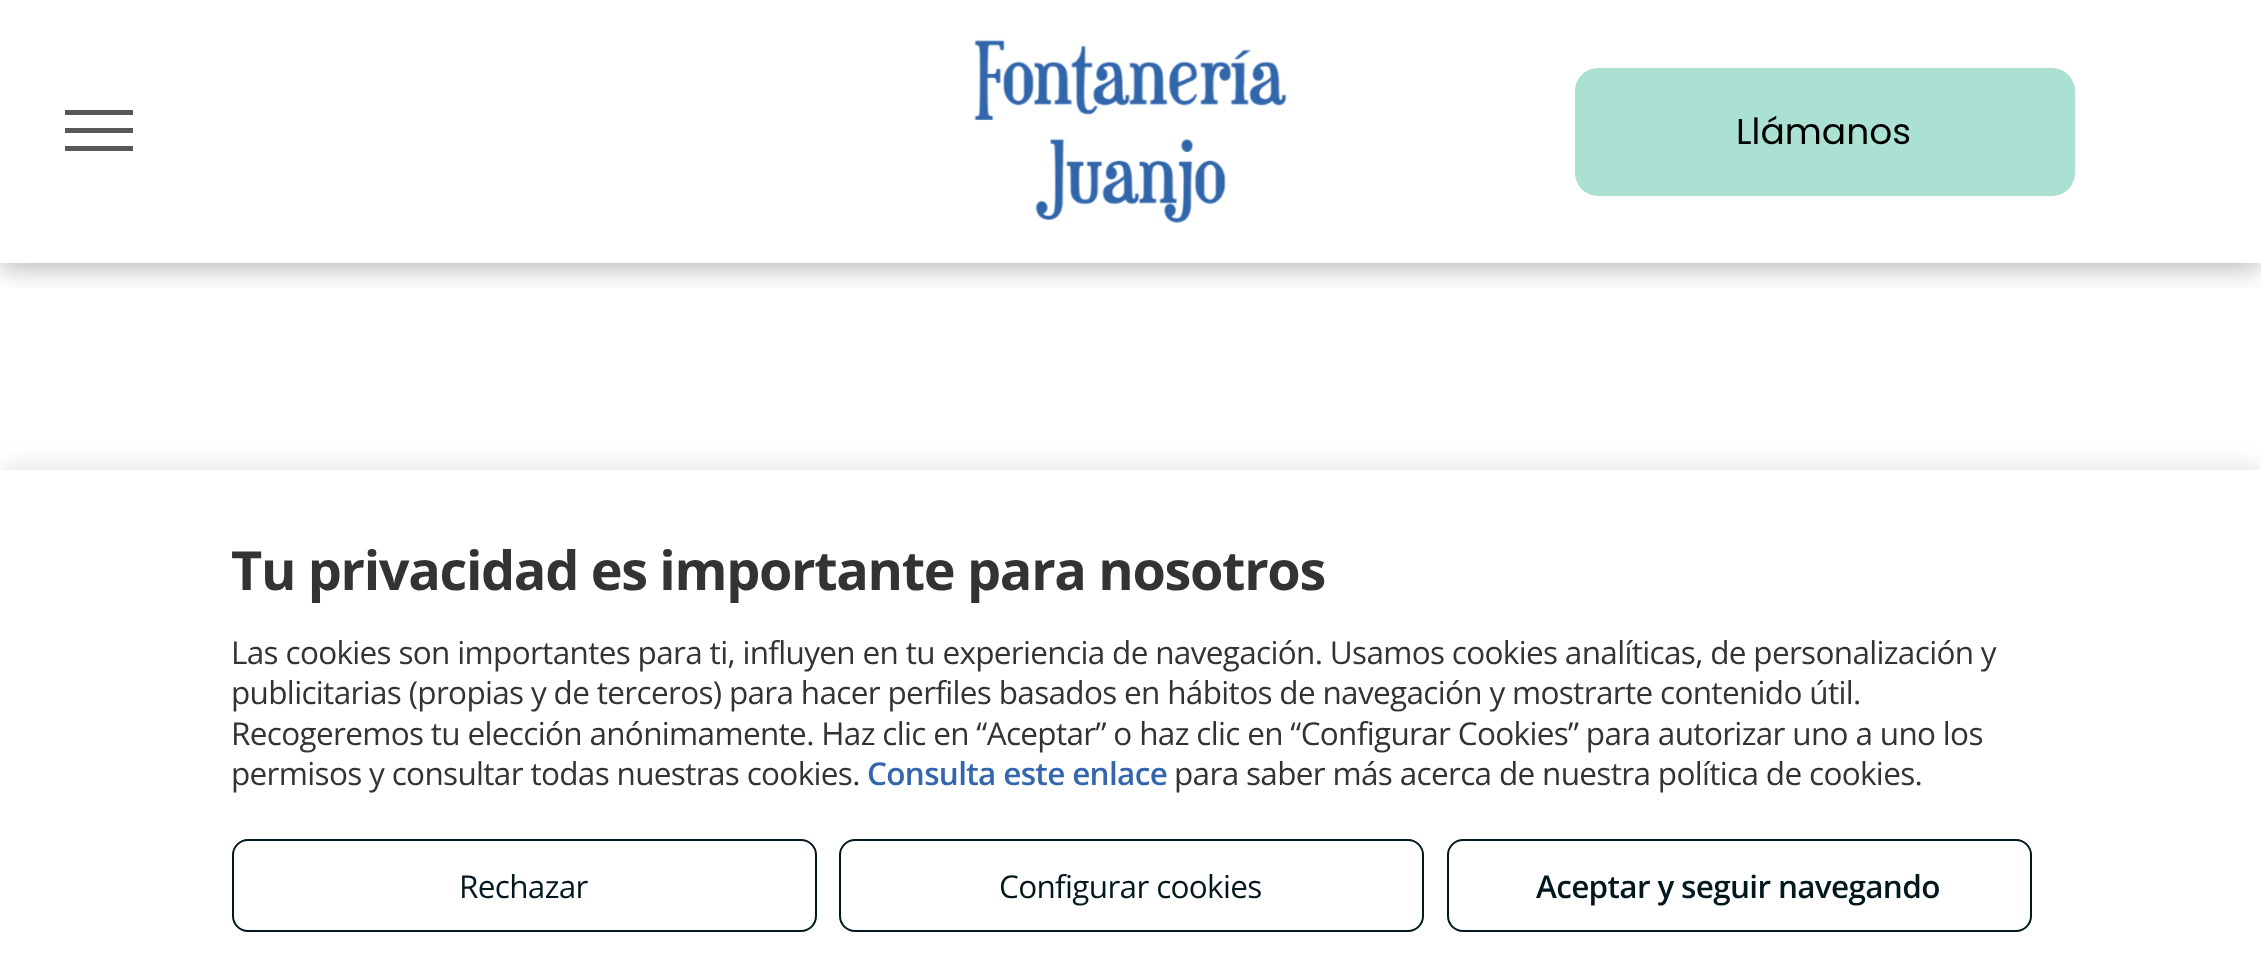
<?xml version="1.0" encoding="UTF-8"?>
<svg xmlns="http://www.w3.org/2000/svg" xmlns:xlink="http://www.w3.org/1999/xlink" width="2261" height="976">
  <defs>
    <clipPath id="clip1"><rect x="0" y="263" width="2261" height="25" /></clipPath>
  </defs>
  <rect width="100%" height="100%" fill="#ffffff" />
  <g clip-path="url(#clip1)">
    <rect y="7" width="2261" height="263" fill="#000000" fill-opacity="0.25" filter="blur(12.5px)" />
  </g>
  <rect x="65" y="110" width="68" height="5" fill="#585858" />
  <rect x="65" y="128" width="68" height="5" fill="#585858" />
  <rect x="65" y="146" width="68" height="5" fill="#585858" />
  <image x="974" y="39" width="313" height="185" xlink:href="image1.png" />
  <rect x="1575" y="68" width="500" height="128" rx="23" fill="#aae1d2" />
  <rect y="466" width="2261" height="506" fill="#000000" fill-opacity="0.1" filter="blur(11px)" />
  <rect y="470" width="2261" height="506" fill="#ffffff" />
  <rect x="233" y="840" width="583" height="91" rx="15" fill="none" stroke="#03181e" stroke-width="2" />
  <rect x="840" y="840" width="583" height="91" rx="15" fill="none" stroke="#03181e" stroke-width="2" />
  <rect x="1448" y="840" width="583" height="91" rx="15" fill="none" stroke="#03181e" stroke-width="2" />
  <text x="1736" y="144" style="font-family: Poppins; font-size: 36px; fill: #000000">Llámanos</text>
  <text x="231" y="590" style="font-family: Open Sans; font-size: 54px; font-weight: bold; letter-spacing: -1.35px; fill: #333333">Tu privacidad es importante para nosotros</text>
  <text x="231" y="664" style="font-family: Open Sans; font-size: 31.5px; letter-spacing: -0.67px; fill: #333333">Las cookies son importantes para ti, influyen en tu experiencia de navegación. Usamos cookies analíticas, de personalización y</text>
  <text x="231" y="704" style="font-family: Open Sans; font-size: 31.5px; letter-spacing: -0.67px; fill: #333333">publicitarias (propias y de terceros) para hacer perfiles basados en hábitos de navegación y mostrarte contenido útil.</text>
  <text x="231" y="745" style="font-family: Open Sans; font-size: 31.5px; letter-spacing: -0.67px; fill: #333333">Recogeremos tu elección anónimamente. Haz clic en “Aceptar” o haz clic en “Configurar Cookies” para autorizar uno a uno los</text>
  <text x="231" y="785" style="font-family: Open Sans; font-size: 31.5px; letter-spacing: -0.67px; fill: #333333">permisos y consultar todas nuestras cookies.</text>
  <text x="867" y="785" style="font-family: Open Sans; font-size: 31.5px; font-weight: 600; letter-spacing: -0.67px; fill: #3366ac">Consulta este enlace</text>
  <text x="1174" y="785" style="font-family: Open Sans; font-size: 31.5px; letter-spacing: -0.67px; fill: #333333">para saber más acerca de nuestra política de cookies.</text>
  <text x="459" y="898" style="font-family: Open Sans; font-size: 31.5px; letter-spacing: -0.67px; fill: #03181e">Rechazar</text>
  <text x="999" y="898" style="font-family: Open Sans; font-size: 31.5px; letter-spacing: -0.67px; fill: #03181e">Configurar cookies</text>
  <text x="1536" y="898" style="font-family: Open Sans; font-size: 31.5px; font-weight: 600; letter-spacing: -0.67px; fill: #03181e">Aceptar y seguir navegando</text>
</svg>
